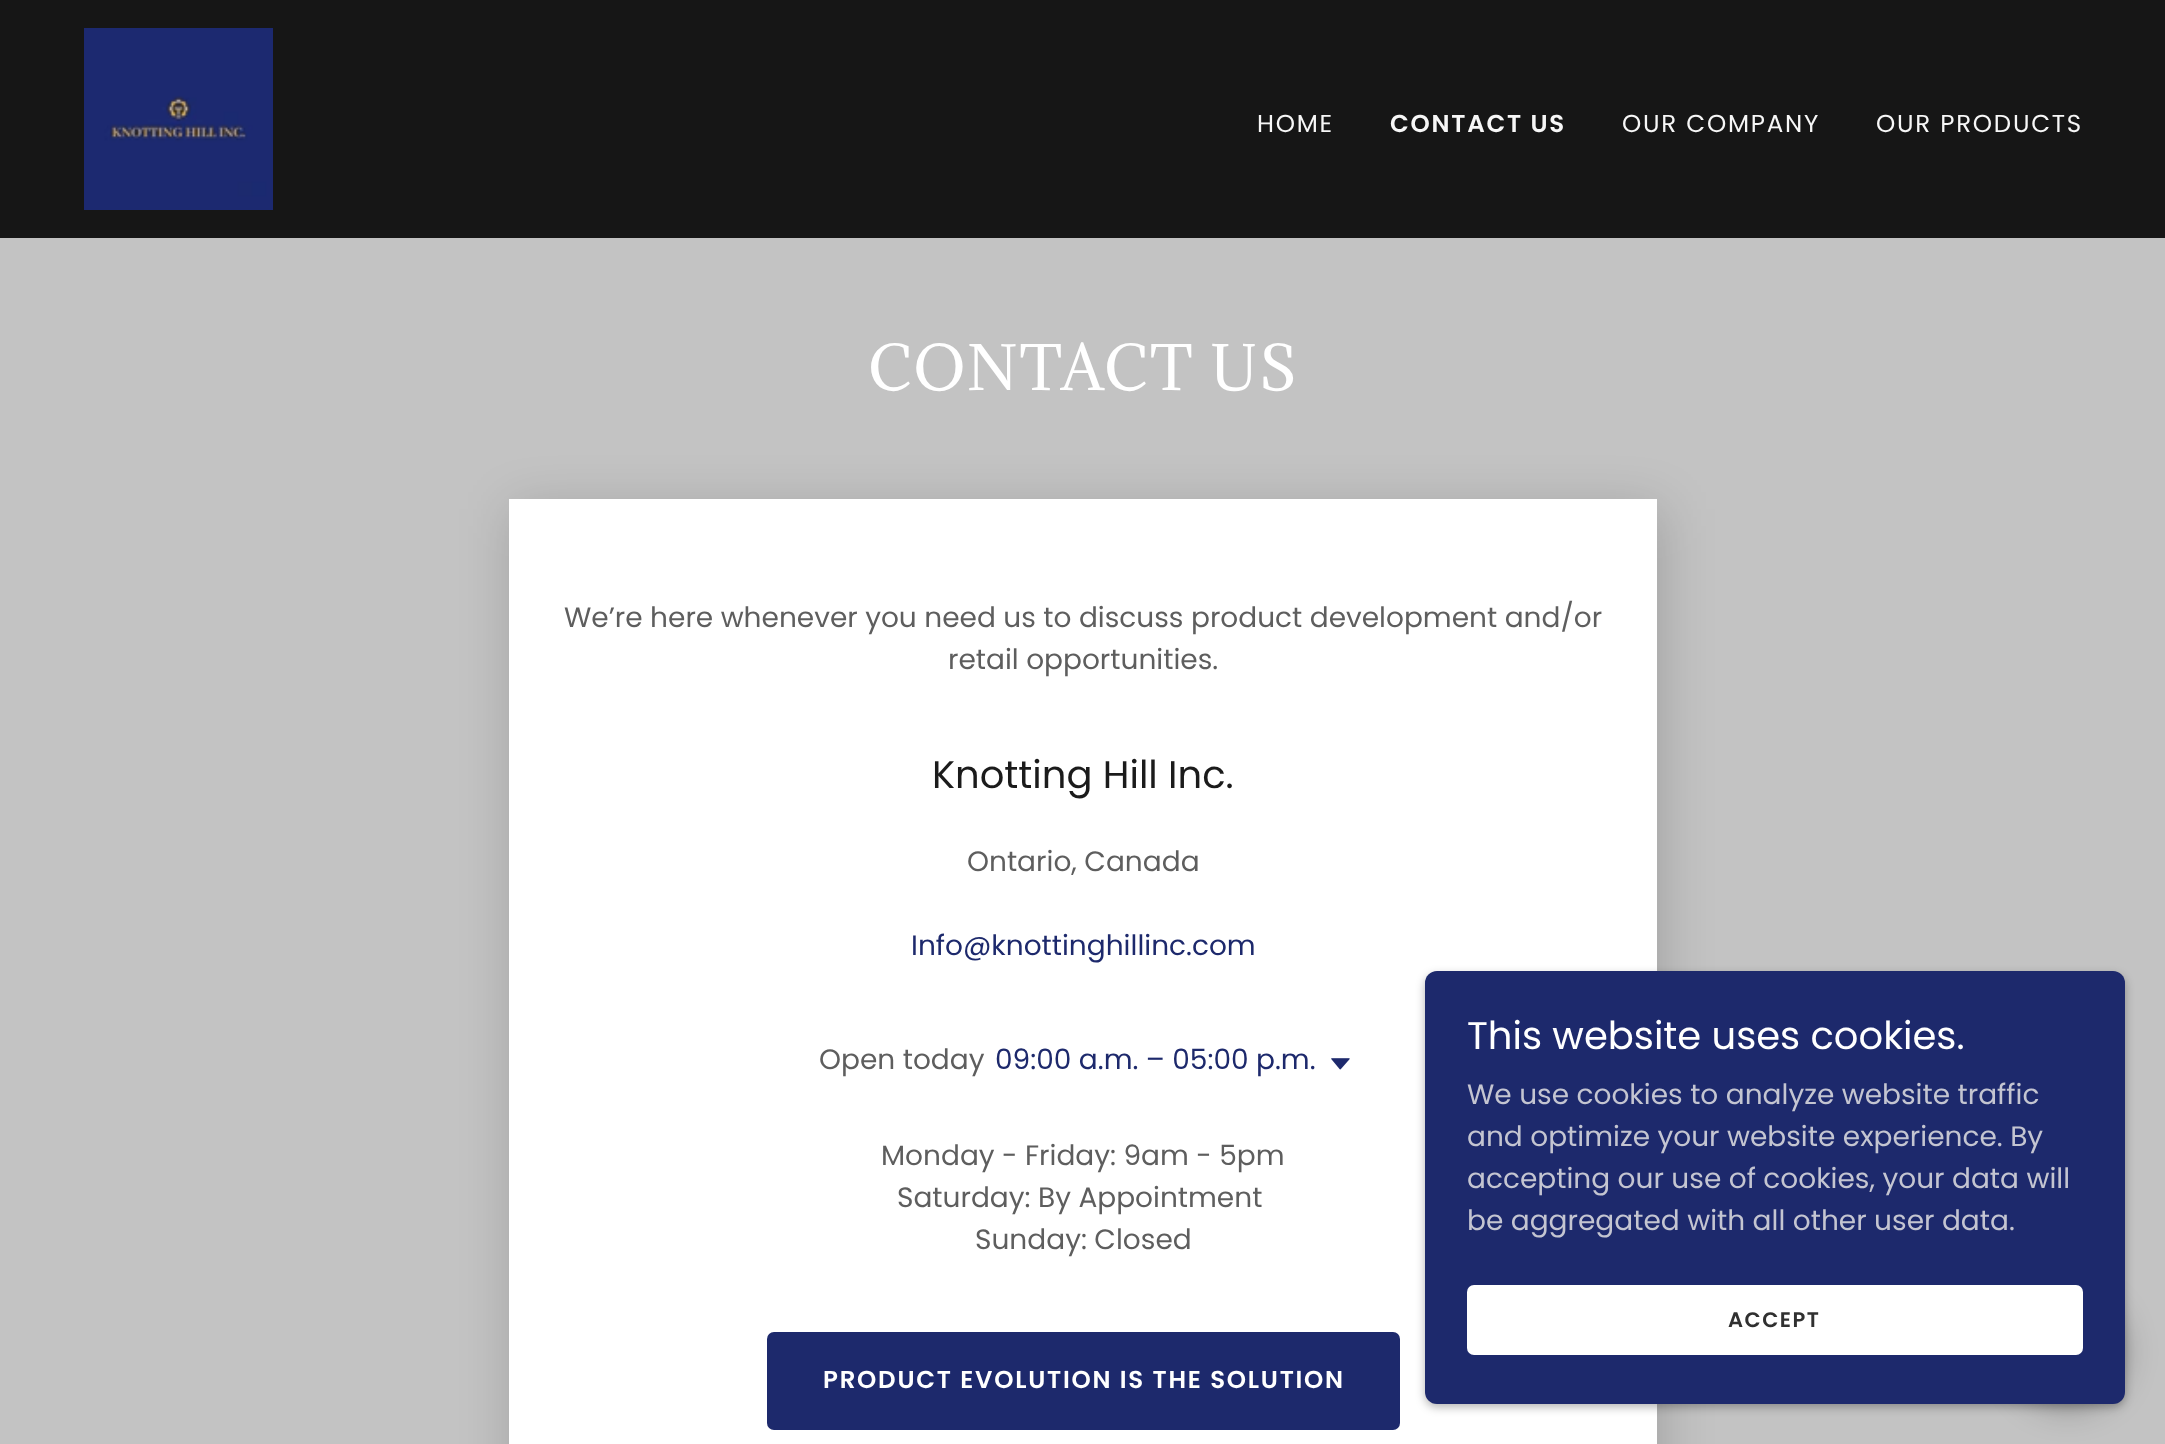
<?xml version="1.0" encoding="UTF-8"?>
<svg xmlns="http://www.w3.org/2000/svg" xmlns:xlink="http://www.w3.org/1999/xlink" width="2165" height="1444">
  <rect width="100%" height="100%" fill="#161616" />
  <image x="84" y="28" width="189" height="182" xlink:href="image1.png" />
  <rect y="238" width="2165" height="1206" fill="#c3c3c3" />
  <rect x="513" y="509" width="1148" height="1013" fill="#000000" fill-opacity="0.18" filter="blur(26px)" />
  <rect x="509" y="499" width="1148" height="945" fill="#ffffff" />
  <image x="1331" y="1058" width="19" height="12" xlink:href="image2.png" />
  <rect x="767" y="1332" width="633" height="98" rx="7" fill="#1d296c" />
  <rect x="1425" y="975" width="700" height="432" rx="12" fill="#000000" fill-opacity="0.3" filter="blur(5px)" />
  <rect x="2011" y="1295" width="114" height="114" rx="57" fill="#000000" fill-opacity="0.25" filter="blur(16px)" />
  <rect x="1425" y="971" width="700" height="433" rx="12" fill="#1d296c" />
  <rect x="1467" y="1285" width="616" height="70" rx="7" fill="#ffffff" />
  <text x="1257" y="132" style="font-family: Poppins; font-size: 24.5px; letter-spacing: 1.75px; fill: #f7f7f7">HOME</text>
  <text x="1390" y="132" style="font-family: Poppins; font-size: 24.5px; font-weight: 600; letter-spacing: 1.75px; fill: #f7f7f7">CONTACT US</text>
  <text x="1622" y="132" style="font-family: Poppins; font-size: 24.5px; letter-spacing: 1.75px; fill: #f7f7f7">OUR COMPANY</text>
  <text x="1876" y="132" style="font-family: Poppins; font-size: 24.5px; letter-spacing: 1.75px; fill: #f7f7f7">OUR PRODUCTS</text>
  <text x="868" y="390" style="font-family: Adamina; font-size: 57.75px; letter-spacing: 1.75px; fill: #ffffff">CONTACT US</text>
  <text x="564" y="627" style="font-family: Poppins; font-size: 28px; fill: #5e5e5e">We’re here whenever you need us to discuss product development and/or</text>
  <text x="948" y="669" style="font-family: Poppins; font-size: 28px; fill: #5e5e5e">retail opportunities.</text>
  <text x="932" y="788" style="font-family: Poppins; font-size: 38.5px; fill: #1b1b1b">Knotting Hill Inc.</text>
  <text x="967" y="871" style="font-family: Poppins; font-size: 28px; fill: #5e5e5e">Ontario, Canada</text>
  <text x="911" y="955" style="font-family: Poppins; font-size: 28px; fill: #1d296c">Info@knottinghillinc.com</text>
  <text x="819" y="1069" style="font-family: Poppins; font-size: 28px; fill: #5e5e5e">Open today</text>
  <text x="995" y="1069" style="font-family: Poppins; font-size: 28px; fill: #1d296c">09:00 a.m. – 05:00 p.m.</text>
  <text x="881" y="1165" style="font-family: Poppins; font-size: 28px; fill: #5e5e5e">Monday - Friday: 9am - 5pm</text>
  <text x="897" y="1207" style="font-family: Poppins; font-size: 28px; fill: #5e5e5e">Saturday: By Appointment</text>
  <text x="975" y="1249" style="font-family: Poppins; font-size: 28px; fill: #5e5e5e">Sunday: Closed</text>
  <text x="823" y="1388" style="font-family: Poppins; font-size: 24.5px; font-weight: 600; letter-spacing: 1.75px; fill: #ffffff">PRODUCT EVOLUTION IS THE SOLUTION</text>
  <text x="1467" y="1049" style="font-family: Poppins; font-size: 38.5px; fill: #ffffff">This website uses cookies.</text>
  <text x="1467" y="1104" style="font-family: Poppins; font-size: 28px; fill: #c4c5d1">We use cookies to analyze website traffic</text>
  <text x="1467" y="1146" style="font-family: Poppins; font-size: 28px; fill: #c4c5d1">and optimize your website experience. By</text>
  <text x="1467" y="1188" style="font-family: Poppins; font-size: 28px; fill: #c4c5d1">accepting our use of cookies, your data will</text>
  <text x="1467" y="1230" style="font-family: Poppins; font-size: 28px; fill: #c4c5d1">be aggregated with all other user data.</text>
  <text x="1728" y="1327" style="font-family: Poppins; font-size: 21px; font-weight: 600; letter-spacing: 1.5px; fill: #303030">ACCEPT</text>
</svg>
